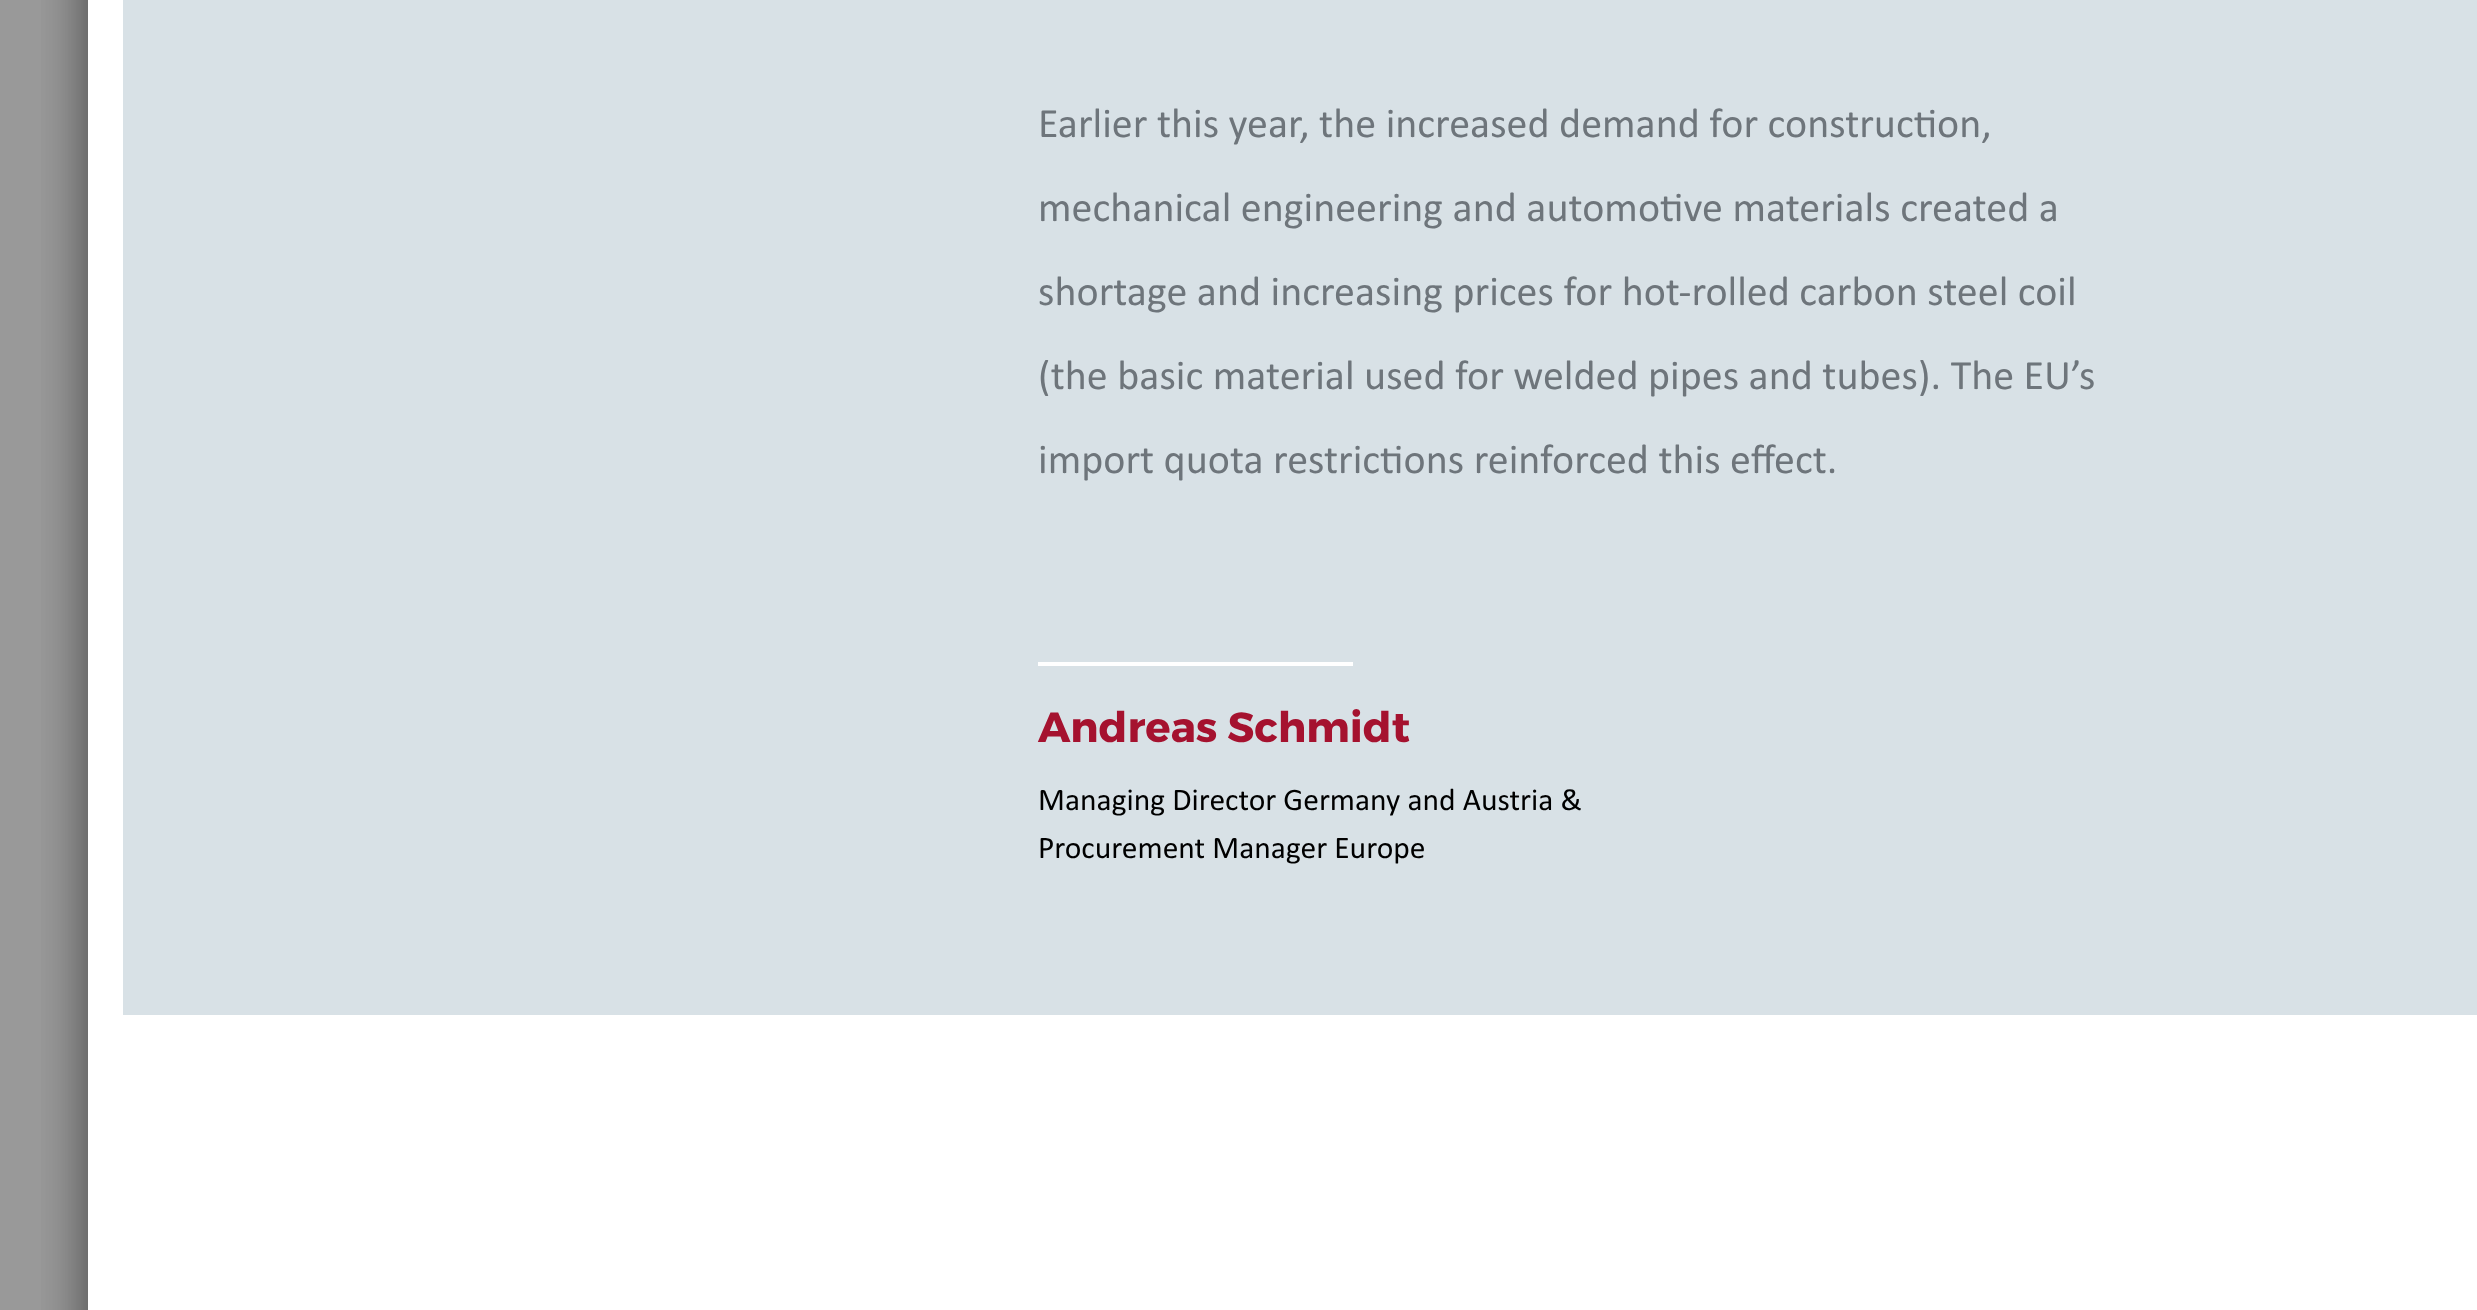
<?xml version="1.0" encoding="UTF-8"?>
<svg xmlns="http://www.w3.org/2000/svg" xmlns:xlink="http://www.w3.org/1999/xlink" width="2477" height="1310">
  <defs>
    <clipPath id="clip1"><rect x="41" y="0" width="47" height="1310" /></clipPath>
  </defs>
  <rect width="100%" height="100%" fill="#ffffff" />
  <rect width="88" height="1310" fill="#999999" />
  <g clip-path="url(#clip1)">
    <rect x="88" y="-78" width="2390" height="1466" fill="#000000" fill-opacity="0.56" filter="blur(26px)" />
  </g>
  <rect x="123" width="2354" height="1015" fill="#d8e1e6" />
  <rect x="1038" y="662" width="315" height="4" fill="#ffffff" />
  <text x="1038" y="137" style="font-family: Calibri; font-size: 42px; fill: #6e757b">Earlier this year, the increased demand for construction,</text>
  <text x="1038" y="221" style="font-family: Calibri; font-size: 42px; fill: #6e757b">mechanical engineering and automotive materials created a</text>
  <text x="1038" y="305" style="font-family: Calibri; font-size: 42px; fill: #6e757b">shortage and increasing prices for hot-rolled carbon steel coil</text>
  <text x="1038" y="389" style="font-family: Calibri; font-size: 42px; fill: #6e757b">(the basic material used for welded pipes and tubes). The EU’s</text>
  <text x="1038" y="473" style="font-family: Calibri; font-size: 42px; fill: #6e757b">import quota restrictions reinforced this effect.</text>
  <text x="1038" y="742" style="font-family: Montserrat; font-size: 42px; font-weight: bold; fill: #a5122f">Andreas Schmidt</text>
  <text x="1038" y="810" style="font-family: Calibri; font-size: 31.5px; fill: #000000">Managing Director Germany and Austria &amp;</text>
  <text x="1038" y="858" style="font-family: Calibri; font-size: 31.5px; fill: #000000">Procurement Manager Europe</text>
</svg>
